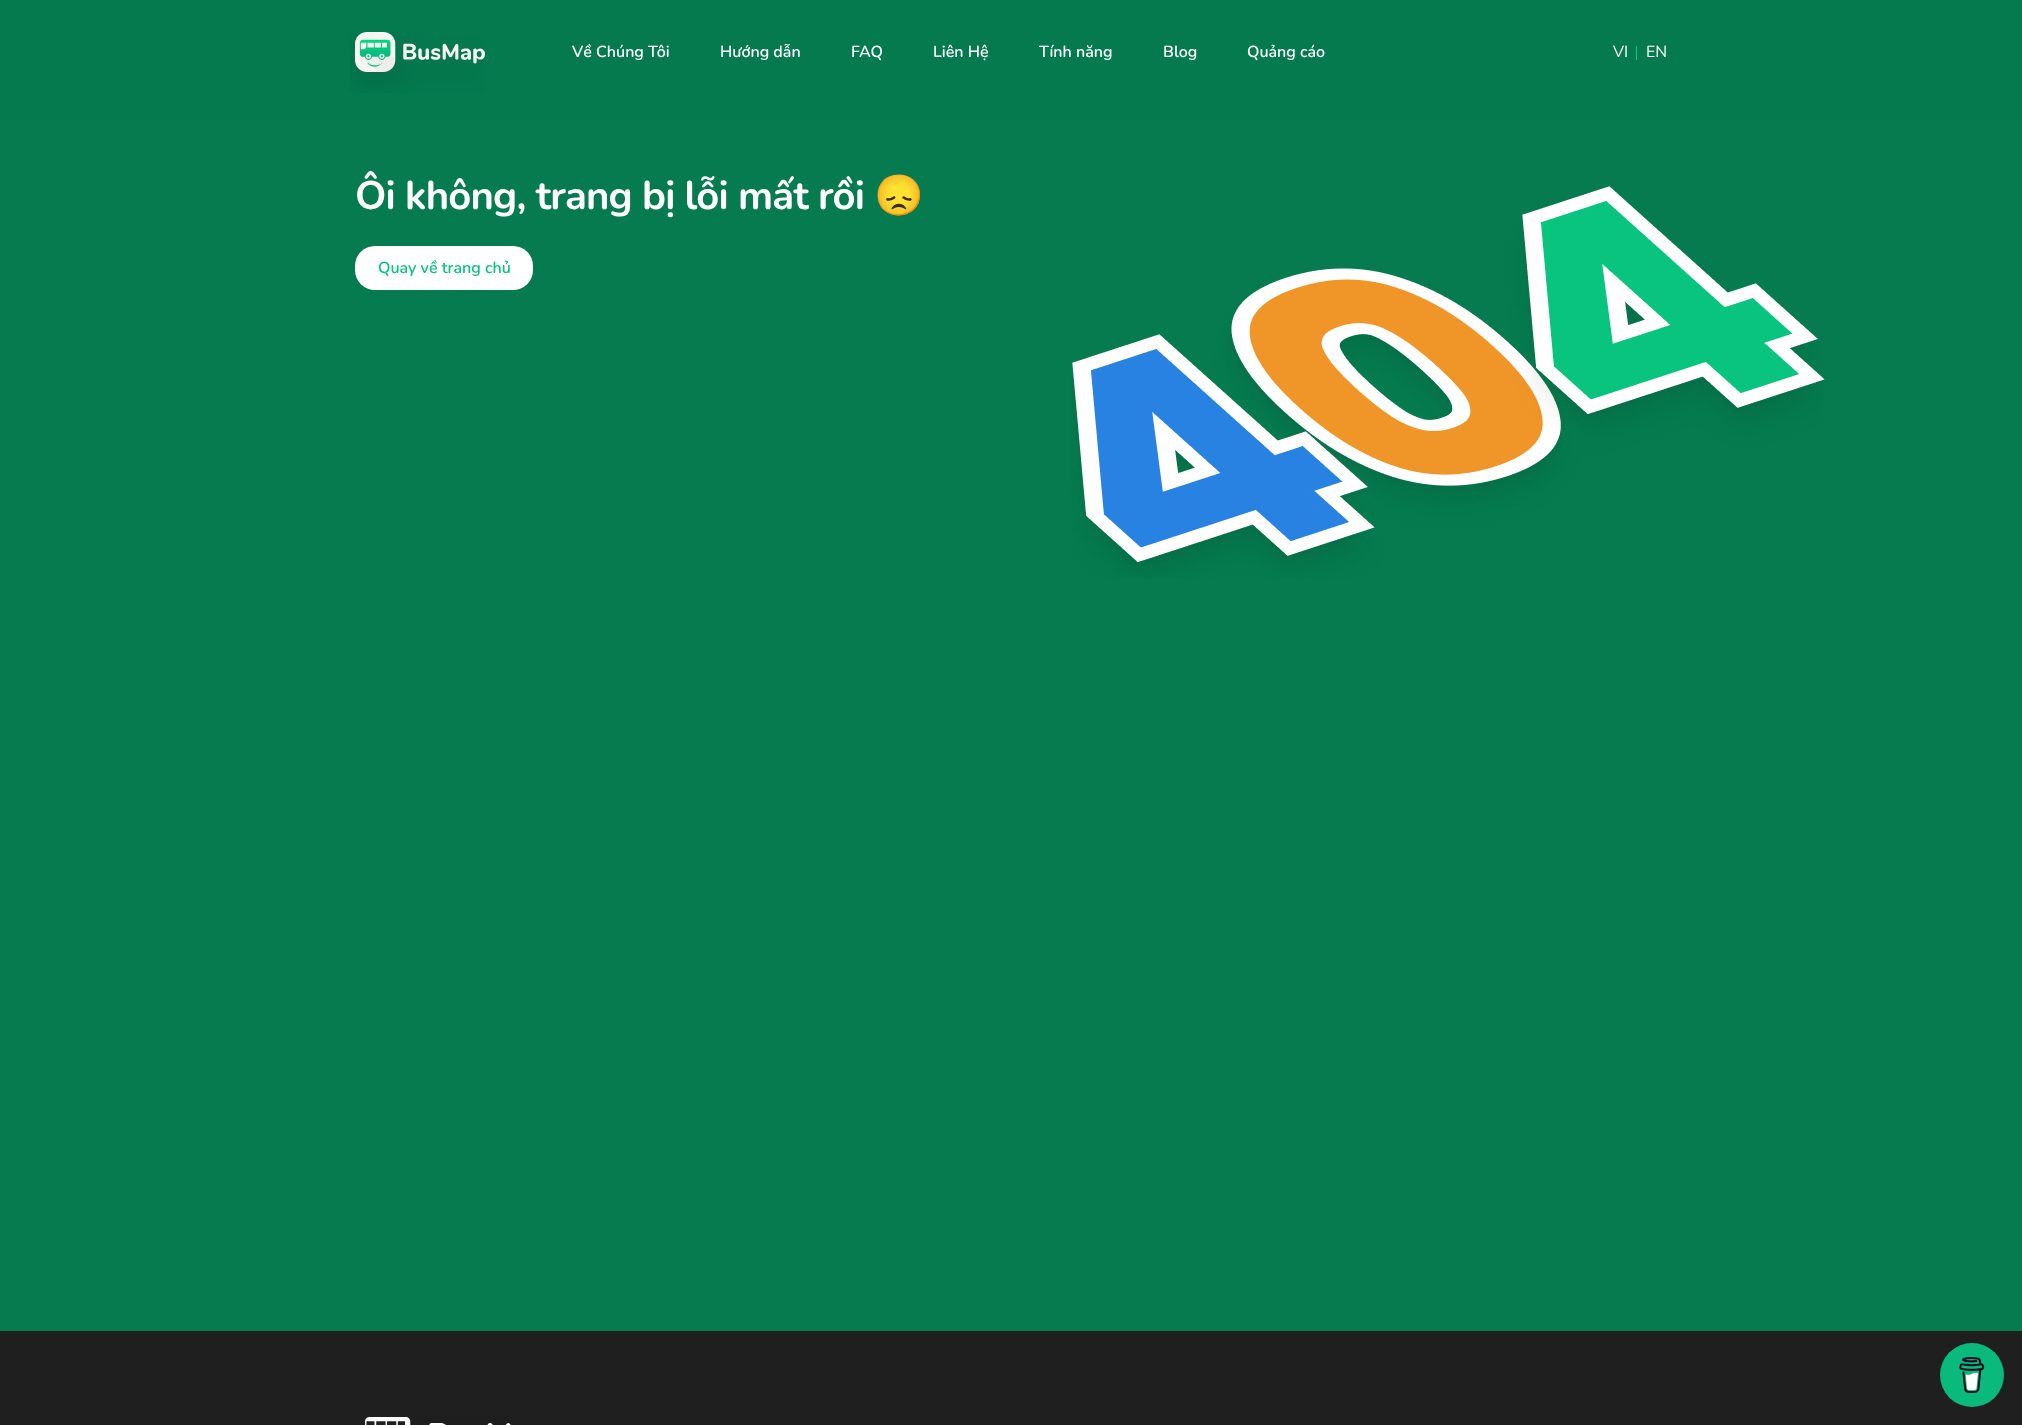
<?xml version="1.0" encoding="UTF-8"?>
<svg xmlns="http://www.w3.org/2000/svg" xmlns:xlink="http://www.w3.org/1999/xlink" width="2022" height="1425">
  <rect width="100%" height="100%" fill="#1f1f1f" />
  <rect width="2022" height="120" fill="#057a4f" />
  <image x="349" y="32" width="136" height="61" xlink:href="image1.png" />
  <rect x="1636" y="46" width="1" height="14" fill="#08c47e" />
  <rect y="120" width="2022" height="1211" fill="#057b4f" />
  <rect x="355" y="246" width="178" height="44" rx="20" fill="#ffffff" />
  <image x="1071" y="186" width="754" height="393" xlink:href="image2.png" />
  <circle cx="1972" cy="1375" r="32" fill="#09ba7c" />
  <image x="1959" y="1357" width="26" height="36" xlink:href="image3.png" />
  <image x="365" y="1417" width="146" height="8" xlink:href="image4.png" />
  <text x="572" y="57" style="font-family: Nunito; font-size: 16px; font-weight: 600; fill: #ffffff">Về Chúng Tôi</text>
  <text x="720" y="57" style="font-family: Nunito; font-size: 16px; font-weight: 600; fill: #ffffff">Hướng dẫn</text>
  <text x="851" y="57" style="font-family: Nunito; font-size: 16px; font-weight: 600; fill: #ffffff">FAQ</text>
  <text x="933" y="57" style="font-family: Nunito; font-size: 16px; font-weight: 600; fill: #ffffff">Liên Hệ</text>
  <text x="1039" y="57" style="font-family: Nunito; font-size: 16px; font-weight: 600; fill: #ffffff">Tính năng</text>
  <text x="1163" y="57" style="font-family: Nunito; font-size: 16px; font-weight: 600; fill: #ffffff">Blog</text>
  <text x="1247" y="57" style="font-family: Nunito; font-size: 16px; font-weight: 600; fill: #ffffff">Quảng cáo</text>
  <text x="1613" y="57" style="font-family: Nunito; font-size: 16px; fill: #ffffff">VI</text>
  <text x="1646" y="57" style="font-family: Nunito; font-size: 16px; fill: #ffffff">EN</text>
  <text x="355" y="209" style="font-family: Nunito; font-size: 40px; font-weight: bold; letter-spacing: -0.8px; fill: #ffffff">Ôi không, trang bị lỗi mất rồi</text>
  <text x="874" y="209" style="font-family: Noto Color Emoji; font-size: 40px; font-weight: bold; letter-spacing: -0.8px; fill: #ffffff">😞</text>
  <text x="378" y="273" style="font-family: Nunito; font-size: 16px; font-weight: 600; fill: #08c47e">Quay về trang chủ</text>
</svg>
